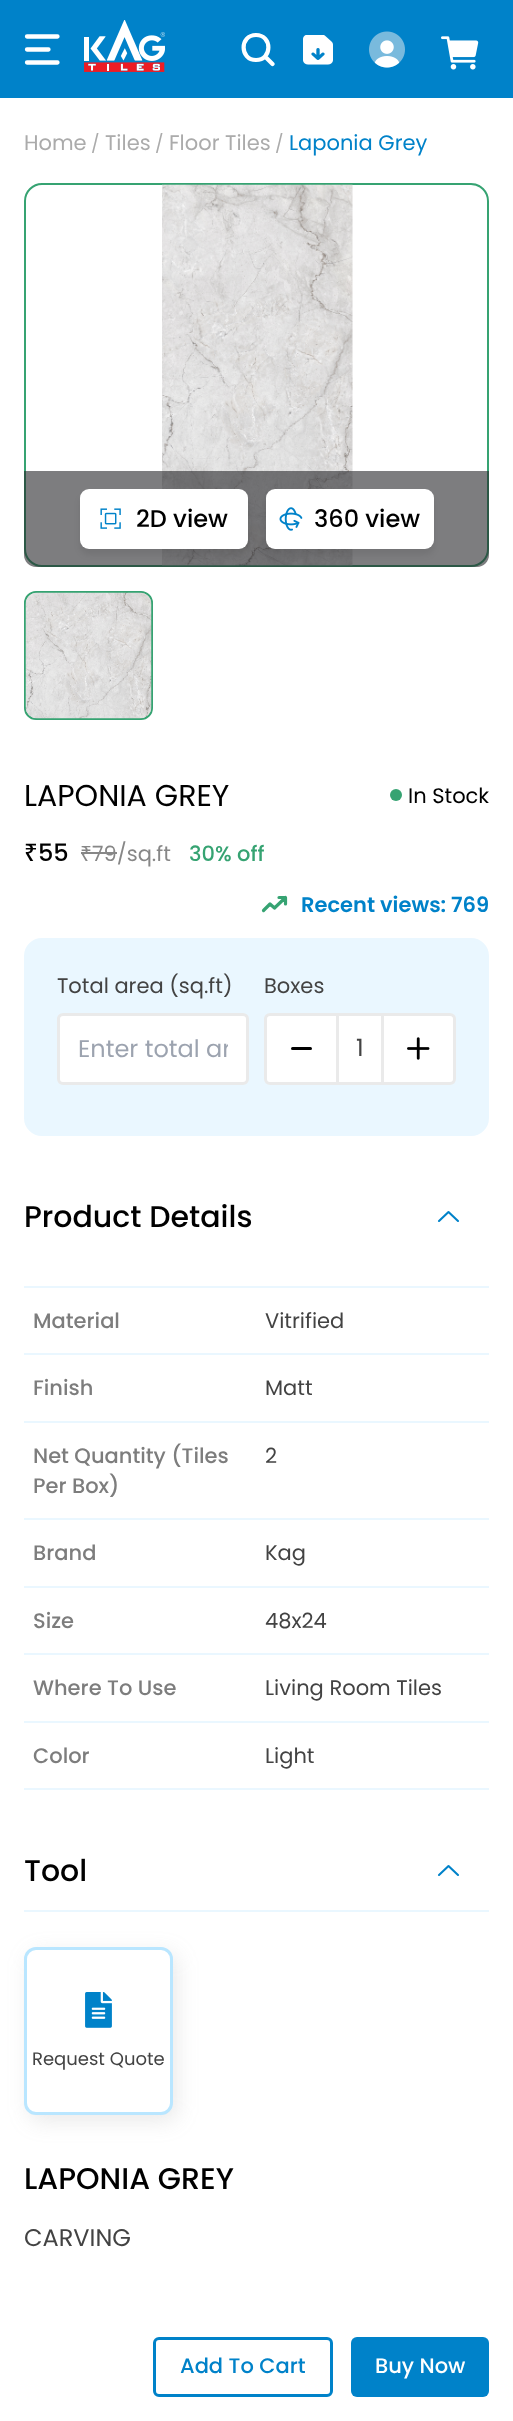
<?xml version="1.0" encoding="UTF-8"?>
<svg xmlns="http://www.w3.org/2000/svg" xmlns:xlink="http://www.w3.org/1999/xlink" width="513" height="2421">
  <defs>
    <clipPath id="clip1"><rect x="78" y="1031" width="150" height="37" /></clipPath>
  </defs>
  <rect width="100%" height="100%" fill="#ffffff" />
  <rect width="513" height="98" fill="#0082c9" />
  <path d="M 27 36.5 h 30.5 m -30.5 13 h 21.5 m -21.5 13 h 30.5" fill="none" stroke="#ffffff" stroke-width="4.3" stroke-linecap="round" />
  <image x="84" y="20" width="81" height="52" xlink:href="image1.png" />
  <path d="M 256 60 c 16.5 0 16.5 -25 0 -25 c -16.5 0 -16.5 25 0 25 z m 16.5 4 l -6 -6" fill="none" stroke="#ffffff" stroke-width="4.2" stroke-linecap="round" stroke-linejoin="round" />
  <image x="303" y="35" width="30" height="30" xlink:href="image2.png" />
  <image x="369" y="31" width="36" height="37" xlink:href="image3.png" />
  <image x="441" y="36" width="38" height="34" xlink:href="image4.png" />
  <rect x="25" y="184" width="463" height="382" rx="17" fill="none" stroke="#36a372" stroke-width="2" />
  <image x="162" y="184" width="191" height="382" xlink:href="image5.png" />
  <path d="M 24 471 h 465 v 84 c 0 6.5 -5.5 12 -12 12 h -441 c -6.5 0 -12 -5.5 -12 -12 z" fill="#27272a" fill-opacity="0.6" />
  <rect x="80" y="495" width="168" height="60" rx="9" fill="#000000" fill-opacity="0.08" filter="blur(3px)" />
  <rect x="80" y="489" width="168" height="60" rx="9" fill="#ffffff" />
  <image x="100" y="508" width="21" height="21" xlink:href="image6.png" />
  <rect x="266" y="495" width="168" height="60" rx="9" fill="#000000" fill-opacity="0.08" filter="blur(3px)" />
  <rect x="266" y="489" width="168" height="60" rx="9" fill="#ffffff" />
  <image x="279" y="507" width="24" height="24" xlink:href="image7.png" />
  <rect x="25" y="592" width="127" height="127" rx="11" fill="none" stroke="#36a372" stroke-width="2" />
  <image x="25" y="592" width="127" height="127" xlink:href="image8.png" />
  <circle cx="396" cy="795" r="6" fill="#36a372" />
  <rect x="81" y="852" width="12" height="2" fill="#878787" />
  <rect x="93" y="852" width="24" height="2" fill="#878787" />
  <path d="M 263.5 910.5 l 6.5 -6.5 l 4.5 4 l 11 -10.5 m 0 6.5 v -6.5 h -6.5" fill="none" stroke="#36a372" stroke-width="3.2" stroke-linecap="round" stroke-linejoin="round" />
  <rect x="25.5" y="939.5" width="462" height="195" rx="16.5" fill="#eaf7ff" stroke="#eaf7ff" stroke-width="3" />
  <rect x="58.5" y="1014.5" width="189" height="69" rx="4.5" fill="#ffffff" stroke="#eaeaea" stroke-width="3" />
  <path d="M 270 1014.5 h 67.5 v 69 h -67.5 c -2.5 0 -4.5 -2 -4.5 -4.5 v -60 c 0 -2.5 2 -4.5 4.5 -4.5 z" fill="#ffffff" stroke="#eaeaea" stroke-width="3" />
  <path d="M 292.5 1048.5 h 18" fill="none" stroke="#000000" stroke-width="3" stroke-linecap="round" stroke-linejoin="round" />
  <rect x="339" y="1016" width="42" height="66" fill="#ffffff" />
  <rect x="339" y="1013" width="42" height="3" fill="#eaeaea" />
  <rect x="339" y="1082" width="42" height="3" fill="#eaeaea" />
  <path d="M 382.5 1014.5 h 67.5 c 2.5 0 4.5 2 4.5 4.5 v 60 c 0 2.5 -2 4.5 -4.5 4.5 h -67.5 z" fill="#ffffff" stroke="#eaeaea" stroke-width="3" />
  <image x="407" y="1037" width="23" height="23" xlink:href="image9.png" />
  <path d="M 439 1221 l 9.5 -9 l 9.5 9" fill="none" stroke="#0082c9" stroke-width="2.1" stroke-linecap="round" stroke-linejoin="round" />
  <rect x="24" y="1286" width="465" height="2" fill="#eaf7ff" />
  <rect x="24" y="1353" width="465" height="2" fill="#eaf7ff" />
  <rect x="24" y="1421" width="465" height="2" fill="#eaf7ff" />
  <rect x="24" y="1518" width="465" height="2" fill="#eaf7ff" />
  <rect x="24" y="1586" width="465" height="2" fill="#eaf7ff" />
  <rect x="24" y="1653" width="465" height="2" fill="#eaf7ff" />
  <rect x="24" y="1721" width="465" height="2" fill="#eaf7ff" />
  <rect x="24" y="1788" width="465" height="2" fill="#eaf7ff" />
  <rect x="24" y="1910" width="465" height="2" fill="#eaf7ff" />
  <path d="M 439 1875 l 9.5 -9 l 9.5 9" fill="none" stroke="#0082c9" stroke-width="2.1" stroke-linecap="round" stroke-linejoin="round" />
  <rect x="29" y="1953" width="148" height="168" rx="12" fill="#878787" fill-opacity="0.18" filter="blur(10.5px)" />
  <rect x="25.5" y="1948.5" width="146" height="165" rx="10.5" fill="#ffffff" stroke="#b9e6ff" stroke-width="3" />
  <image x="85" y="1992" width="27" height="36" xlink:href="image10.png" />
  <rect x="154.5" y="2338.5" width="177" height="57" rx="4.5" fill="none" stroke="#0082c9" stroke-width="3" />
  <rect x="351" y="2337" width="138" height="60" rx="6" fill="#0082c9" />
  <text x="24" y="150" style="font-family: Poppins; font-size: 21px; fill: #ababab">Home</text>
  <text x="91" y="150" style="font-family: Poppins; font-size: 18px; fill: #ababab">/</text>
  <text x="105" y="150" style="font-family: Poppins; font-size: 21px; fill: #ababab">Tiles</text>
  <text x="155" y="150" style="font-family: Poppins; font-size: 18px; fill: #ababab">/</text>
  <text x="169" y="150" style="font-family: Poppins; font-size: 21px; fill: #ababab">Floor Tiles</text>
  <text x="275" y="150" style="font-family: Poppins; font-size: 18px; fill: #ababab">/</text>
  <text x="289" y="150" style="font-family: Poppins; font-size: 21px; fill: #0082c9">Laponia Grey</text>
  <text x="136" y="527" style="font-family: Poppins; font-size: 24px; font-weight: 500; fill: #000000">2D view</text>
  <text x="314" y="527" style="font-family: Poppins; font-size: 24px; font-weight: 500; fill: #000000">360 view</text>
  <text x="24" y="806" style="font-family: Poppins; font-size: 30px; fill: #000000">LAPONIA GREY</text>
  <text x="408" y="803" style="font-family: Poppins; font-size: 21px; fill: #000000">In Stock</text>
  <text x="24" y="861" style="font-family: Noto Sans; font-size: 24px; font-weight: 500; fill: #000000">₹</text>
  <text x="38" y="861" style="font-family: Poppins; font-size: 24px; font-weight: 500; fill: #000000">55</text>
  <text x="80" y="861" style="font-family: Noto Sans; font-size: 21px; fill: #878787">₹</text>
  <text x="92" y="861" style="font-family: Poppins; font-size: 21px; fill: #878787">79/sq.ft</text>
  <text x="189" y="861" style="font-family: Poppins; font-size: 21px; font-weight: 500; fill: #36a372">30% off</text>
  <text x="301" y="912" style="font-family: Poppins; font-size: 21px; font-weight: 600; fill: #0082c9">Recent views: 769</text>
  <text x="57" y="993" style="font-family: Poppins; font-size: 21px; fill: #434343">Total area (sq.ft)</text>
  <g clip-path="url(#clip1)">
    <text x="78" y="1057" style="font-family: Poppins; font-size: 24px; fill: #9ca3af">Enter total ar</text>
  </g>
  <text x="264" y="993" style="font-family: Poppins; font-size: 21px; fill: #434343">Boxes</text>
  <text x="356" y="1056" style="font-family: Poppins; font-size: 24px; fill: #434343">1</text>
  <text x="24" y="1227" style="font-family: Poppins; font-size: 30px; font-weight: 500; fill: #000000">Product Details</text>
  <text x="33" y="1328" style="font-family: Poppins; font-size: 21px; font-weight: 500; fill: #7d7d7d">Material</text>
  <text x="265" y="1328" style="font-family: Poppins; font-size: 21px; fill: #434343">Vitrified</text>
  <text x="33" y="1395" style="font-family: Poppins; font-size: 21px; font-weight: 500; fill: #7d7d7d">Finish</text>
  <text x="265" y="1395" style="font-family: Poppins; font-size: 21px; fill: #434343">Matt</text>
  <text x="33" y="1463" style="font-family: Poppins; font-size: 21px; font-weight: 500; fill: #7d7d7d">Net Quantity (Tiles</text>
  <text x="33" y="1493" style="font-family: Poppins; font-size: 21px; font-weight: 500; fill: #7d7d7d">Per Box)</text>
  <text x="265" y="1463" style="font-family: Poppins; font-size: 21px; fill: #434343">2</text>
  <text x="33" y="1560" style="font-family: Poppins; font-size: 21px; font-weight: 500; fill: #7d7d7d">Brand</text>
  <text x="265" y="1560" style="font-family: Poppins; font-size: 21px; fill: #434343">Kag</text>
  <text x="33" y="1628" style="font-family: Poppins; font-size: 21px; font-weight: 500; fill: #7d7d7d">Size</text>
  <text x="265" y="1628" style="font-family: Poppins; font-size: 21px; fill: #434343">48x24</text>
  <text x="33" y="1695" style="font-family: Poppins; font-size: 21px; font-weight: 500; fill: #7d7d7d">Where To Use</text>
  <text x="265" y="1695" style="font-family: Poppins; font-size: 21px; fill: #434343">Living Room Tiles</text>
  <text x="33" y="1763" style="font-family: Poppins; font-size: 21px; font-weight: 500; fill: #7d7d7d">Color</text>
  <text x="265" y="1763" style="font-family: Poppins; font-size: 21px; fill: #434343">Light</text>
  <text x="24" y="1881" style="font-family: Poppins; font-size: 30px; font-weight: 500; fill: #000000">Tool</text>
  <text x="32" y="2065" style="font-family: Poppins; font-size: 18px; fill: #434343">Request Quote</text>
  <text x="180" y="2373" style="font-family: Poppins; font-size: 21px; font-weight: 500; fill: #0082c9">Add To Cart</text>
  <text x="375" y="2373" style="font-family: Poppins; font-size: 21px; font-weight: 500; fill: #ffffff">Buy Now</text>
  <text x="24" y="2189" style="font-family: Poppins; font-size: 30px; font-weight: 500; fill: #000000">LAPONIA GREY</text>
  <text x="24" y="2246" style="font-family: Poppins; font-size: 24px; fill: #434343">CARVING</text>
</svg>
